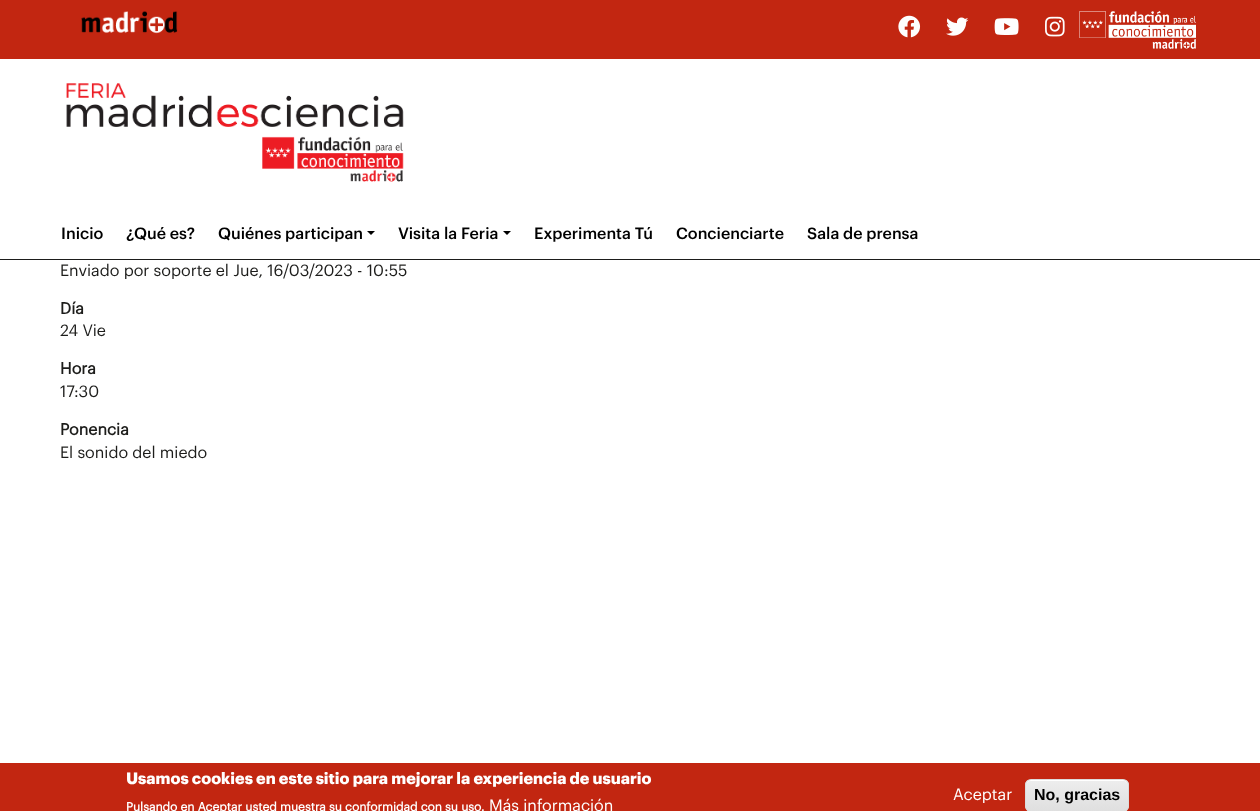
<?xml version="1.0" encoding="UTF-8"?>
<svg xmlns="http://www.w3.org/2000/svg" xmlns:xlink="http://www.w3.org/1999/xlink" width="1260" height="811">
  <defs>
    <clipPath id="clip1"><rect x="1025" y="779" width="104" height="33" rx="6" /></clipPath>
    <linearGradient id="g1" gradientUnits="userSpaceOnUse" x1="1077" y1="780" x2="1077" y2="811"><stop offset="0.05" stop-color="#ededed" /><stop offset="1" stop-color="#dfdfdf" /></linearGradient>
  </defs>
  <rect width="100%" height="100%" fill="#ffffff" />
  <rect y="259" width="1260" height="1" fill="#1d1d1b" />
  <rect width="1260" height="59" fill="#c22611" />
  <image x="81" y="11" width="97" height="23" xlink:href="image1.png" />
  <image x="898" y="15" width="23" height="23" xlink:href="image2.png" />
  <image x="946" y="17" width="23" height="19" xlink:href="image3.png" />
  <image x="994" y="18" width="25" height="17" xlink:href="image4.png" />
  <image x="1045" y="16" width="20" height="21" xlink:href="image5.png" />
  <image x="1079" y="11" width="117" height="38" xlink:href="image6.png" />
  <image x="66" y="83" width="338" height="99" xlink:href="image7.png" />
  <path d="M 367 231 h 8 l -4 4 z" fill="#000000" />
  <path d="M 503 231 h 8 l -4 4 z" fill="#000000" />
  <rect y="763" width="1260" height="48" fill="#c22611" />
  <g clip-path="url(#clip1)">
    <rect x="1025" y="780" width="104" height="31" fill="url(#g1)" />
  </g>
  <path d="M 1031 781 h 92 c 3 0 5 2 5 5 c 0 -10 -15 -6 -20 -6 h -62 c -5 0 -20 -4 -20 6 c 0 -3 2 -5 5 -5 z" fill="#ffffff" />
  <rect x="1025.5" y="779.5" width="103" height="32" rx="5.5" fill="none" stroke="#dcdcdc" />
  <text x="61" y="239" style="font-family: Graphik; font-size: 16px; font-weight: 500; fill: #000000">Inicio</text>
  <text x="126" y="239" style="font-family: Graphik; font-size: 16px; font-weight: 500; fill: #000000">¿Qué es?</text>
  <text x="218" y="239" style="font-family: Graphik; font-size: 16px; font-weight: 500; fill: #000000">Quiénes participan</text>
  <text x="398" y="239" style="font-family: Graphik; font-size: 16px; font-weight: 500; fill: #000000">Visita la Feria</text>
  <text x="534" y="239" style="font-family: Graphik; font-size: 16px; font-weight: 500; fill: #000000">Experimenta Tú</text>
  <text x="676" y="239" style="font-family: Graphik; font-size: 16px; font-weight: 500; fill: #000000">Concienciarte</text>
  <text x="807" y="239" style="font-family: Graphik; font-size: 16px; font-weight: 500; fill: #000000">Sala de prensa</text>
  <text x="60" y="276" style="font-family: Graphik; font-size: 16px; fill: #1d1d1b">Enviado por soporte el Jue, 16/03/2023 - 10:55</text>
  <text x="60" y="314" style="font-family: Graphik; font-size: 16px; font-weight: bold; fill: #1d1d1b">Día</text>
  <text x="60" y="336" style="font-family: Graphik; font-size: 16px; fill: #1d1d1b">24 Vie</text>
  <text x="60" y="374" style="font-family: Graphik; font-size: 16px; font-weight: bold; fill: #1d1d1b">Hora</text>
  <text x="60" y="397" style="font-family: Graphik; font-size: 16px; fill: #1d1d1b">17:30</text>
  <text x="60" y="435" style="font-family: Graphik; font-size: 16px; font-weight: bold; fill: #1d1d1b">Ponencia</text>
  <text x="60" y="458" style="font-family: Graphik; font-size: 16px; fill: #1d1d1b">El sonido del miedo</text>
  <text x="126" y="784" style="font-family: 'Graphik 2'; font-size: 16px; font-weight: bold; fill: #ffffff">Usamos cookies en este sitio para mejorar la experiencia de usuario</text>
  <text x="126" y="811" style="font-family: Graphik; font-size: 12px; font-weight: bold; fill: #ffffff">Pulsando en Aceptar usted muestra su conformidad con su uso.</text>
  <text x="489" y="811" style="font-family: Graphik; font-size: 16px; fill: #ffffff">Más información</text>
  <text x="953" y="800" style="font-family: Graphik; font-size: 16px; fill: #ffffff">Aceptar</text>
  <text x="1034" y="800" style="font-family: Liberation Sans; font-size: 16px; font-weight: bold; fill: #000000">No, gracias</text>
</svg>
